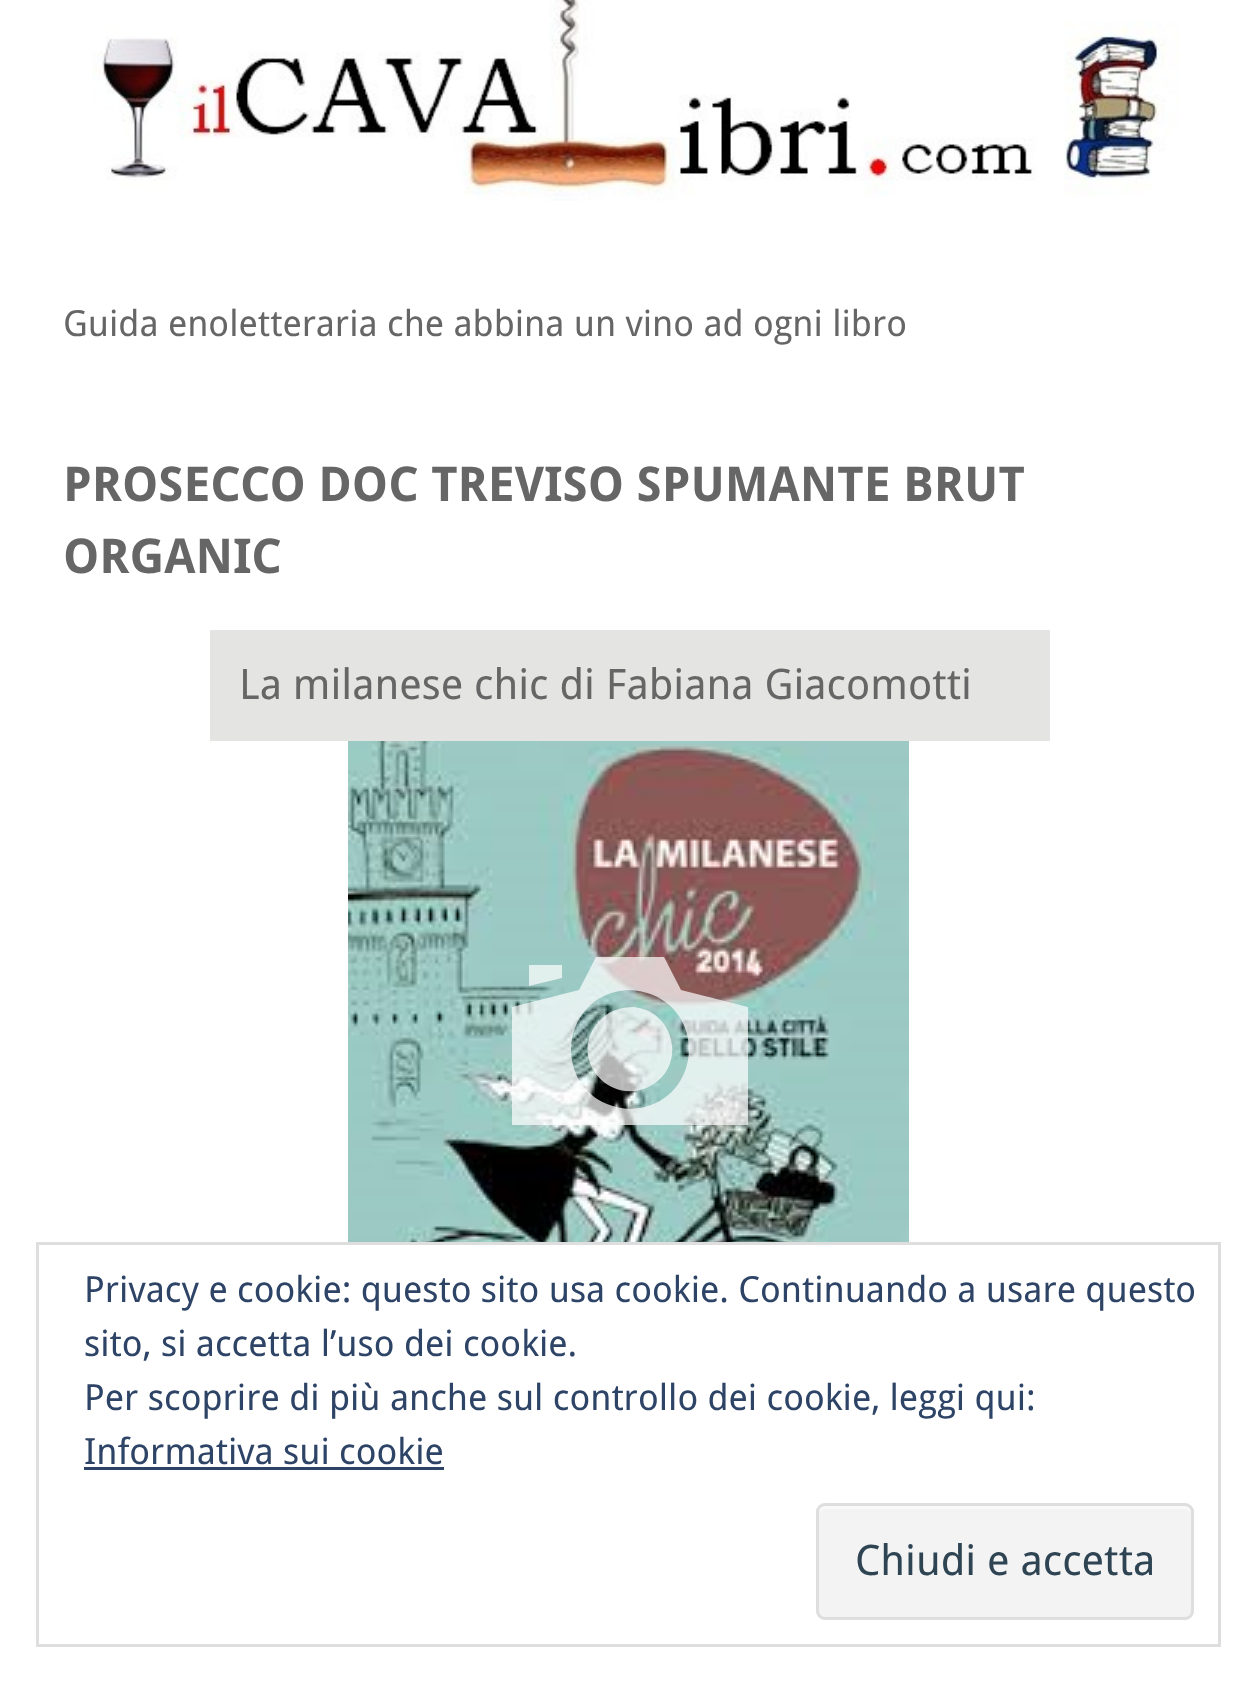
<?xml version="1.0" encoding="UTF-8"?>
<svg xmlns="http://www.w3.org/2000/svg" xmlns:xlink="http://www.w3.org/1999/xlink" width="1255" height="1681">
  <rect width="100%" height="100%" fill="#ffffff" />
  <image x="92" y="0" width="1088" height="201" xlink:href="image1.png" />
  <rect x="210" y="630" width="840" height="111" fill="#e4e4e2" />
  <image x="348" y="741" width="561" height="501" xlink:href="image2.png" />
  <path d="M 681 990 l 67 17 v 118 h -236 v -118 l 67 -17 l 17 -33 h 68 z m -74 114 c 12 5 25 6 38 3 c 54 -14 60 -90 8 -112 c -12 -5 -25 -6 -38 -3 c -54 14 -60 90 -8 112 z m -45 -139 v 13 l -33 8 v -21 z m 47 48 c 7 -4 15 -6 24 -6 c 41 3 54 58 19 78 c -34 21 -77 -14 -61 -52 c 4 -8 10 -15 18 -20 z" fill="#ffffff" fill-opacity="0.7" />
  <rect x="37.5" y="1243.5" width="1182" height="402" fill="none" stroke="#dedede" stroke-width="3" />
  <rect x="84" y="1467" width="360" height="3" fill="#2e4467" />
  <rect x="816" y="1503" width="378" height="117" rx="9" fill="#f3f3f3" />
  <path d="M 825 1509 h 360 c 3 0 6 3 6 6 v -3 c 0 -3 -3 -6 -6 -6 h -360 c -3 0 -6 3 -6 6 v 3 c 0 -3 3 -6 6 -6 z" fill="#f9f9f9" />
  <rect x="817.5" y="1504.5" width="375" height="114" rx="7.5" fill="none" stroke="#dedede" stroke-width="3" />
  <text x="63" y="336" style="font-family: Droid Sans; font-size: 36px; fill: #666666">Guida enoletteraria che abbina un vino ad ogni libro</text>
  <text x="63" y="501" style="font-family: Droid Sans; font-size: 48px; font-weight: bold; fill: #666666">PROSECCO DOC TREVISO SPUMANTE BRUT</text>
  <text x="63" y="573" style="font-family: Droid Sans; font-size: 48px; font-weight: bold; fill: #666666">ORGANIC</text>
  <text x="239" y="699" style="font-family: Droid Sans; font-size: 42px; fill: #666666">La milanese chic di Fabiana Giacomotti</text>
  <text x="84" y="1302" style="font-family: Droid Sans; font-size: 36px; fill: #2e4467">Privacy e cookie: questo sito usa cookie. Continuando a usare questo</text>
  <text x="84" y="1356" style="font-family: Droid Sans; font-size: 36px; fill: #2e4467">sito, si accetta l’uso dei cookie.</text>
  <text x="84" y="1410" style="font-family: Droid Sans; font-size: 36px; fill: #2e4467">Per scoprire di più anche sul controllo dei cookie, leggi qui:</text>
  <text x="84" y="1464" style="font-family: Droid Sans; font-size: 36px; fill: #2e4467">Informativa sui cookie</text>
  <text x="855" y="1575" style="font-family: Droid Sans; font-size: 42px; fill: #2e4453">Chiudi e accetta</text>
</svg>
